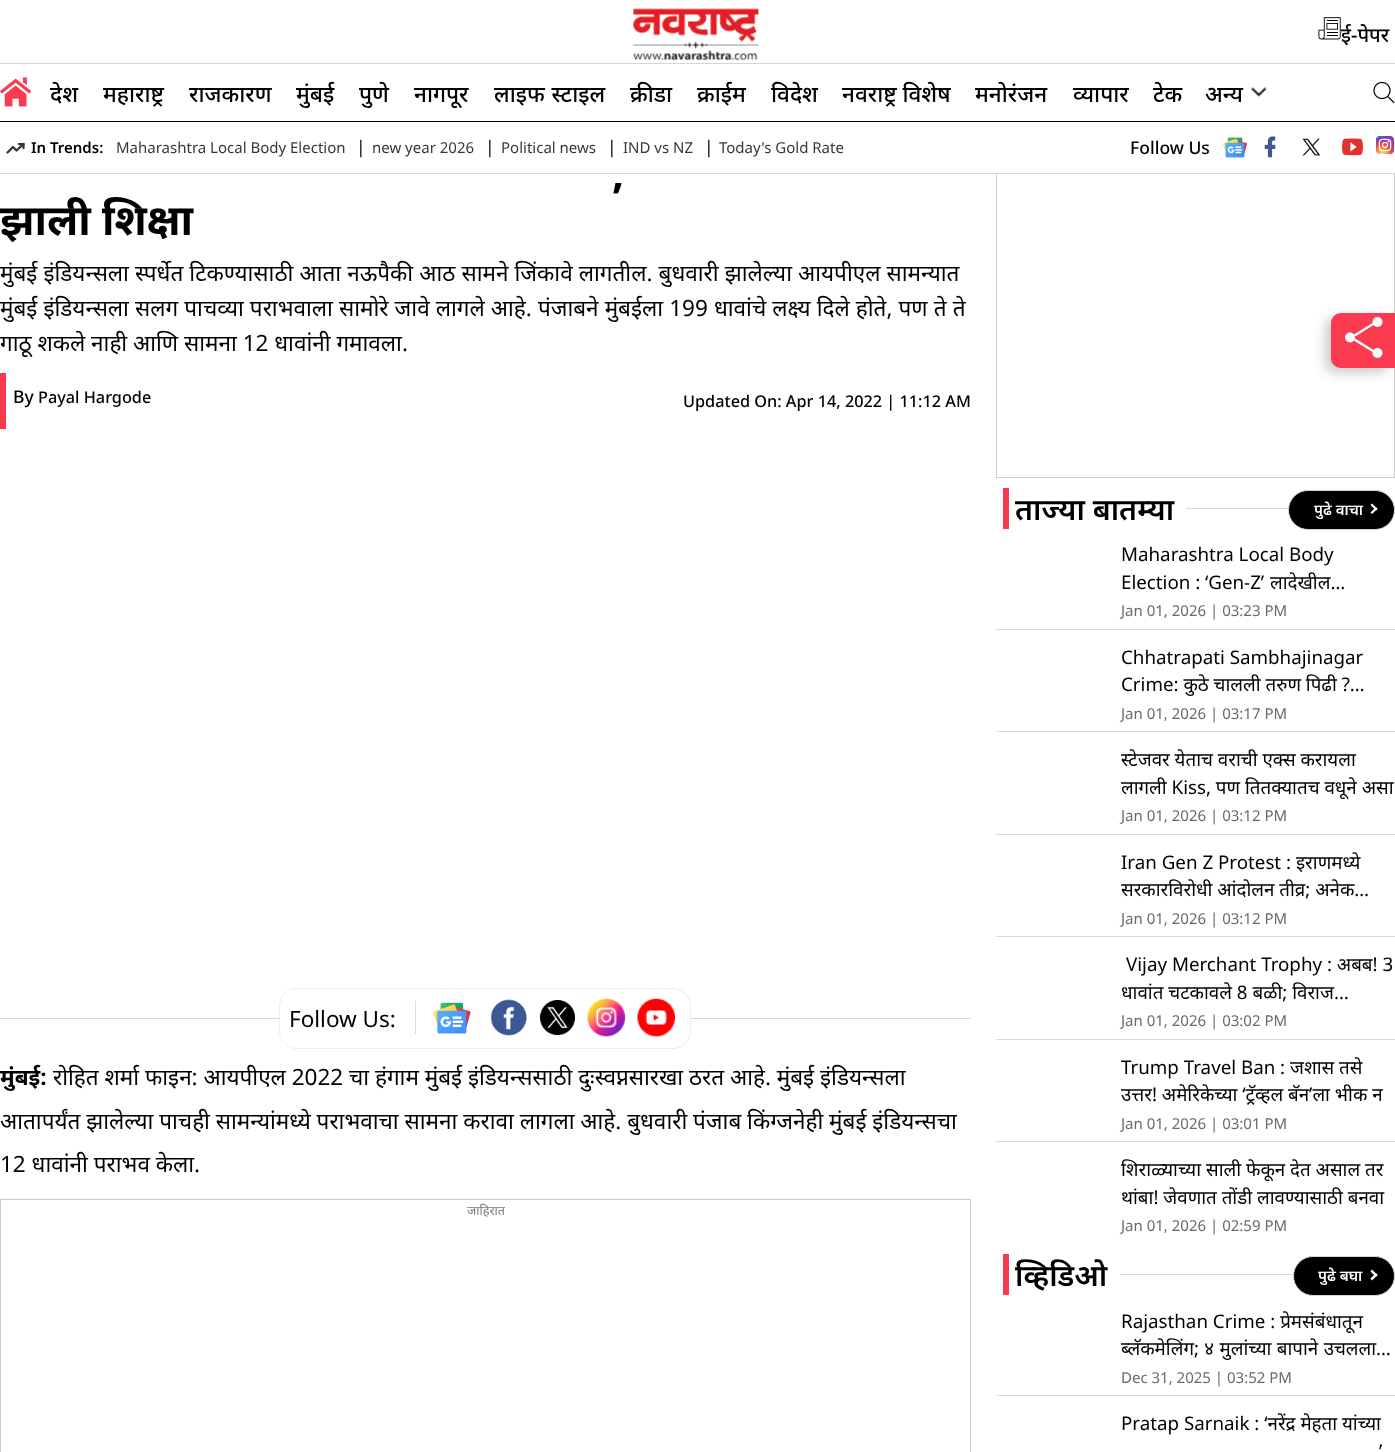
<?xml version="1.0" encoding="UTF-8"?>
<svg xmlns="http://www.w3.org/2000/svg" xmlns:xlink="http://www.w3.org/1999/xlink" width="1395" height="1452">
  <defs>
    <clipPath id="clip1"><rect x="6" y="143" width="19" height="11" /></clipPath>
    <clipPath id="clip2"><rect x="1121" y="1155" width="274" height="55" /></clipPath>
  </defs>
  <rect width="100%" height="100%" fill="#ffffff" />
  <rect x="996.5" y="140.5" width="398" height="337" fill="none" stroke="#cccccc" />
  <rect x="996" y="140" width="399" height="33" fill="#ffffff" />
  <image x="633" y="8" width="127" height="53" xlink:href="image1.png" />
  <rect y="63" width="1395" height="1" fill="#d6d6d6" />
  <rect y="121" width="1395" height="1" fill="#000000" />
  <image x="0" y="77" width="31" height="30" xlink:href="image3.png" />
  <image x="1251" y="87" width="16" height="10" xlink:href="image4.png" />
  <image x="1369" y="78" width="26" height="30" xlink:href="image5.png" />
  <rect y="173" width="1395" height="1" fill="#d6d6d6" />
  <path d="M 23.5 144 l -7 6.5 l -3.5 -3.5 l -5.5 5.5" fill="none" stroke="#333333" stroke-width="2.3" stroke-linecap="round" stroke-linejoin="round" />
  <g clip-path="url(#clip1)">
    <path d="M 19 144 h 4.5 v 4" fill="none" stroke="#333333" stroke-width="2.3" stroke-linecap="round" stroke-linejoin="round" />
  </g>
  <image x="1223" y="137" width="24" height="21" xlink:href="image6.png" />
  <image x="1264" y="136" width="12" height="22" xlink:href="image7.png" />
  <image x="1302" y="138" width="19" height="18" xlink:href="image8.png" />
  <image x="1342" y="138" width="21" height="18" xlink:href="image9.png" />
  <image x="1376" y="136" width="18" height="18" xlink:href="image10.png" />
  <rect x="1325" y="318" width="64" height="55" rx="10" fill="#000000" fill-opacity="0.2" filter="blur(6px)" />
  <path d="M 1341 313 h 54 v 55 h -54 c -5.5 0 -10 -4.5 -10 -10 v -35 c 0 -5.5 4.5 -10 10 -10 z" fill="#f93a4f" />
  <circle cx="1350" cy="337.5" r="5" fill="#ffffff" />
  <circle cx="1377.5" cy="322" r="5" fill="#ffffff" />
  <circle cx="1377.5" cy="353" r="5" fill="#ffffff" />
  <path d="M 1354.5 335.5 l 18.5 -11.5 m -18.5 15.5 l 18.5 11.5" fill="none" stroke="#ffffff" stroke-width="2.6" />
  <rect y="373" width="6" height="56" fill="#f93a4f" />
  <rect y="1018" width="971" height="1" fill="#d7d7d7" />
  <rect x="279.5" y="988.5" width="411" height="60" rx="17.5" fill="#ffffff" stroke="#ececec" />
  <rect x="415" y="1001" width="1" height="33" fill="#dcdcdc" />
  <image x="433" y="1002" width="38" height="32" xlink:href="image11.png" />
  <image x="490" y="999" width="37" height="37" xlink:href="image12.png" />
  <image x="540" y="1000" width="35" height="35" xlink:href="image13.png" />
  <image x="587" y="998" width="38" height="39" xlink:href="image14.png" />
  <image x="637" y="998" width="38" height="39" xlink:href="image15.png" />
  <rect x="0.5" y="1199.5" width="970" height="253" fill="none" stroke="#cccccc" />
  <rect x="1003" y="488" width="6" height="41" fill="#f93a4f" />
  <rect x="1186" y="508" width="103" height="1" fill="#d6d6d6" />
  <rect x="1288.5" y="490.5" width="106" height="39" rx="19.5" fill="#000000" stroke="#d6d6d6" />
  <path d="M 1370.5 505 l 1.5 -1.5 l 5.5 5.5 l -1.5 1.5 z" fill="#ffffff" />
  <path d="M 1370.5 512.5 l 5.5 -5.5 l 1.5 2 l -5.5 5 z" fill="#ffffff" />
  <rect x="996" y="629" width="399" height="1" fill="#d9d9d9" />
  <rect x="996" y="731" width="399" height="1" fill="#d9d9d9" />
  <rect x="996" y="834" width="399" height="1" fill="#d9d9d9" />
  <rect x="996" y="936" width="399" height="1" fill="#d9d9d9" />
  <rect x="996" y="1039" width="399" height="1" fill="#d9d9d9" />
  <rect x="996" y="1141" width="399" height="1" fill="#d9d9d9" />
  <rect x="1003" y="1254" width="6" height="41" fill="#f93a4f" />
  <rect x="1120" y="1274" width="174" height="1" fill="#d6d6d6" />
  <rect x="1293.5" y="1256.5" width="101" height="39" rx="19.5" fill="#000000" stroke="#d6d6d6" />
  <path d="M 1370.5 1271.5 l 1.5 -2 l 5.5 5.5 l -1.5 2 z" fill="#ffffff" />
  <path d="M 1370.5 1278.5 l 5.5 -5.5 l 1.5 2 l -5.5 5.5 z" fill="#ffffff" />
  <rect x="996" y="1395" width="399" height="1" fill="#d9d9d9" />
  <text x="1341" y="42" style="font-family: Noto Sans; font-size: 20px; font-weight: 500; fill: #000000">ई-पेपर</text>
  <image x="1318" y="17" width="23" height="23" xlink:href="image2.png" />
  <text x="50" y="102" style="font-family: Noto Sans; font-size: 22.5px; font-weight: 500; fill: #000000">देश</text>
  <text x="103" y="102" style="font-family: Noto Sans; font-size: 22.5px; font-weight: 500; fill: #000000">महाराष्ट्र</text>
  <text x="189" y="102" style="font-family: Noto Sans; font-size: 22.5px; font-weight: 500; fill: #000000">राजकारण</text>
  <text x="296" y="102" style="font-family: Noto Sans; font-size: 22.5px; font-weight: 500; fill: #000000">मुंबई</text>
  <text x="359" y="102" style="font-family: Noto Sans; font-size: 22.5px; font-weight: 500; fill: #000000">पुणे</text>
  <text x="414" y="102" style="font-family: Noto Sans; font-size: 22.5px; font-weight: 500; fill: #000000">नागपूर</text>
  <text x="494" y="102" word-spacing="1" style="font-family: Noto Sans; font-size: 22.5px; font-weight: 500; fill: #000000">लाइफ स्टाइल</text>
  <text x="630" y="102" style="font-family: Noto Sans; font-size: 22.5px; font-weight: 500; fill: #000000">क्रीडा</text>
  <text x="697" y="102" style="font-family: Noto Sans; font-size: 22.5px; font-weight: 500; fill: #000000">क्राईम</text>
  <text x="771" y="102" style="font-family: Noto Sans; font-size: 22.5px; font-weight: 500; fill: #000000">विदेश</text>
  <text x="842" y="102" style="font-family: Noto Sans; font-size: 22.5px; font-weight: 500; fill: #000000">नवराष्ट्र विशेष</text>
  <text x="975" y="102" style="font-family: Noto Sans; font-size: 22.5px; font-weight: 500; fill: #000000">मनोरंजन</text>
  <text x="1073" y="102" style="font-family: Noto Sans; font-size: 22.5px; font-weight: 500; fill: #000000">व्यापार</text>
  <text x="1153" y="102" style="font-family: Noto Sans; font-size: 22.5px; font-weight: 500; fill: #000000">टेक</text>
  <text x="1205" y="102" style="font-family: Noto Sans; font-size: 22.5px; font-weight: 500; fill: #000000">अन्य</text>
  <text x="31" y="153" style="font-family: Noto Sans; font-size: 15px; font-weight: 600; fill: #000000">In Trends:</text>
  <text x="116" y="153" style="font-family: Noto Sans; font-size: 15px; fill: #373737">Maharashtra Local Body Election</text>
  <text x="356" y="153" style="font-family: Noto Sans; font-size: 17.5px; fill: #000000">|</text>
  <text x="372" y="153" style="font-family: Noto Sans; font-size: 15px; fill: #373737">new year 2026</text>
  <text x="485" y="153" style="font-family: Noto Sans; font-size: 17.5px; fill: #000000">|</text>
  <text x="501" y="153" style="font-family: Noto Sans; font-size: 15px; fill: #373737">Political news</text>
  <text x="607" y="153" style="font-family: Noto Sans; font-size: 17.5px; fill: #000000">|</text>
  <text x="623" y="153" style="font-family: Noto Sans; font-size: 15px; fill: #373737">IND vs NZ</text>
  <text x="704" y="153" style="font-family: Noto Sans; font-size: 17.5px; fill: #000000">|</text>
  <text x="719" y="153" style="font-family: Noto Sans; font-size: 15px; fill: #373737">Today's Gold Rate</text>
  <text x="1130" y="154" style="font-family: Noto Sans; font-size: 17.5px; font-weight: 500; fill: #000000">Follow Us</text>
  <text x="612" y="188" style="font-family: Noto Sans; font-size: 42.5px; font-weight: bold; fill: #000000">,</text>
  <text x="0" y="235" style="font-family: Noto Sans; font-size: 42.5px; font-weight: bold; fill: #000000">झाली शिक्षा</text>
  <text x="0" y="281" word-spacing="0.25" style="font-family: Noto Sans; font-size: 22.5px; fill: #000000">मुंबई इंडियन्सला स्पर्धेत टिकण्यासाठी आता नऊपैकी आठ सामने जिंकावे लागतील. बुधवारी झालेल्या आयपीएल सामन्यात</text>
  <text x="0" y="316" word-spacing="0.25" style="font-family: Noto Sans; font-size: 22.5px; fill: #000000">मुंबई इंडियन्सला सलग पाचव्या पराभवाला सामोरे जावे लागले आहे. पंजाबने मुंबईला 199 धावांचे लक्ष्य दिले होते, पण ते ते</text>
  <text x="0" y="351" style="font-family: Noto Sans; font-size: 22.5px; fill: #000000">गाठू शकले नाही आणि सामना 12 धावांनी गमावला.</text>
  <text x="13" y="403" style="font-family: Noto Sans; font-size: 17.5px; font-weight: 500; fill: #000000">By</text>
  <text x="38" y="403" style="font-family: Noto Sans; font-size: 16.25px; font-weight: 500; fill: #000000">Payal Hargode</text>
  <text x="683" y="407" style="font-family: Noto Sans; font-size: 16.25px; font-weight: 500; fill: #000000">Updated On: Apr 14, 2022 | 11:12 AM</text>
  <text x="289" y="1027" style="font-family: Noto Sans; font-size: 22.5px; fill: #000000">Follow Us:</text>
  <text x="0" y="1085" style="font-family: Noto Sans; font-size: 22.5px; font-weight: bold; fill: #000000">मुंबई:</text>
  <text x="53" y="1085" style="font-family: Noto Sans; font-size: 22.5px; fill: #000000">रोहित शर्मा फाइन: आयपीएल 2022 चा हंगाम मुंबई इंडियन्ससाठी दुःस्वप्नसारखा ठरत आहे. मुंबई इंडियन्सला</text>
  <text x="0" y="1129" style="font-family: Noto Sans; font-size: 22.5px; fill: #000000">आतापर्यंत झालेल्या पाचही सामन्यांमध्ये पराभवाचा सामना करावा लागला आहे. बुधवारी पंजाब किंग्जनेही मुंबई इंडियन्सचा</text>
  <text x="0" y="1172" style="font-family: Noto Sans; font-size: 22.5px; fill: #000000">12 धावांनी पराभव केला.</text>
  <text x="467" y="1215" style="font-family: Noto Sans; font-size: 12.5px; fill: #777777">जाहिरात</text>
  <text x="1015" y="520" style="font-family: Noto Sans; font-size: 30px; font-weight: 600; fill: #000000">ताज्या बातम्या</text>
  <text x="1314" y="515" style="font-family: Noto Sans; font-size: 15px; font-weight: 600; fill: #ffffff">पुढे वाचा</text>
  <text x="1121" y="561" style="font-family: Noto Sans; font-size: 18.75px; fill: #000000">Maharashtra Local Body</text>
  <text x="1121" y="589" style="font-family: Noto Sans; font-size: 18.75px; fill: #000000">Election :</text>
  <text x="1205" y="589" word-spacing="1" style="font-family: Noto Sans; font-size: 18.75px; fill: #000000">‘Gen-Z’ लादेखील…</text>
  <text x="1121" y="616" style="font-family: Noto Sans; font-size: 15px; fill: #6a6a6a">Jan 01, 2026 | 03:23 PM</text>
  <text x="1121" y="664" style="font-family: Noto Sans; font-size: 18.75px; fill: #000000">Chhatrapati Sambhajinagar</text>
  <text x="1121" y="691" style="font-family: Noto Sans; font-size: 18.75px; fill: #000000">Crime: कुठे चालली तरुण पिढी ?…</text>
  <text x="1121" y="719" style="font-family: Noto Sans; font-size: 15px; fill: #6a6a6a">Jan 01, 2026 | 03:17 PM</text>
  <text x="1121" y="766" style="font-family: Noto Sans; font-size: 18.75px; fill: #000000">स्टेजवर येताच वराची एक्स करायला</text>
  <text x="1121" y="794" style="font-family: Noto Sans; font-size: 18.75px; fill: #000000">लागली Kiss, पण तितक्यातच वधूने असा</text>
  <text x="1121" y="821" style="font-family: Noto Sans; font-size: 15px; fill: #6a6a6a">Jan 01, 2026 | 03:12 PM</text>
  <text x="1121" y="869" style="font-family: Noto Sans; font-size: 18.75px; fill: #000000">Iran Gen Z Protest : इराणमध्ये</text>
  <text x="1121" y="896" style="font-family: Noto Sans; font-size: 18.75px; fill: #000000">सरकारविरोधी आंदोलन तीव्र; अनेक…</text>
  <text x="1121" y="924" style="font-family: Noto Sans; font-size: 15px; fill: #6a6a6a">Jan 01, 2026 | 03:12 PM</text>
  <text x="1126" y="971" style="font-family: Noto Sans; font-size: 18.75px; fill: #000000">Vijay Merchant Trophy : अबब! 3</text>
  <text x="1121" y="999" style="font-family: Noto Sans; font-size: 18.75px; fill: #000000">धावांत चटकावले 8 बळी; विराज…</text>
  <text x="1121" y="1026" style="font-family: Noto Sans; font-size: 15px; fill: #6a6a6a">Jan 01, 2026 | 03:02 PM</text>
  <text x="1121" y="1074" style="font-family: Noto Sans; font-size: 18.75px; fill: #000000">Trump Travel Ban : जशास तसे</text>
  <text x="1121" y="1101" style="font-family: Noto Sans; font-size: 18.75px; fill: #000000">उत्तर! अमेरिकेच्या ‘ट्रॅव्हल बॅन’ला भीक न</text>
  <text x="1121" y="1129" style="font-family: Noto Sans; font-size: 15px; fill: #6a6a6a">Jan 01, 2026 | 03:01 PM</text>
  <text x="1121" y="1176" style="font-family: Noto Sans; font-size: 18.75px; fill: #000000">शिराळ्याच्या साली फेकून देत असाल तर</text>
  <g clip-path="url(#clip2)">
    <text x="1121" y="1204" style="font-family: Noto Sans; font-size: 18.75px; fill: #000000">थांबा! जेवणात तोंडी लावण्यासाठी बनवा</text>
  </g>
  <text x="1121" y="1231" style="font-family: Noto Sans; font-size: 15px; fill: #6a6a6a">Jan 01, 2026 | 02:59 PM</text>
  <text x="1015" y="1286" style="font-family: Noto Sans; font-size: 30px; font-weight: 600; fill: #000000">व्हिडिओ</text>
  <text x="1318" y="1281" style="font-family: Noto Sans; font-size: 15px; font-weight: 600; fill: #ffffff">पुढे बघा</text>
  <text x="1121" y="1328" style="font-family: Noto Sans; font-size: 18.75px; fill: #000000">Rajasthan Crime : प्रेमसंबंधातून</text>
  <text x="1121" y="1355" word-spacing="0.5" style="font-family: Noto Sans; font-size: 18.75px; fill: #000000">ब्लॅकमेलिंग; ४ मुलांच्या बापाने उचलला…</text>
  <text x="1121" y="1383" style="font-family: Noto Sans; font-size: 15px; fill: #6a6a6a">Dec 31, 2025 | 03:52 PM</text>
  <text x="1121" y="1430" style="font-family: Noto Sans; font-size: 18.75px; fill: #000000">Pratap Sarnaik : ‘नरेंद्र मेहता यांच्या</text>
  <text x="1379" y="1458" style="font-family: Noto Sans; font-size: 18.75px; fill: #000000">’</text>
</svg>
